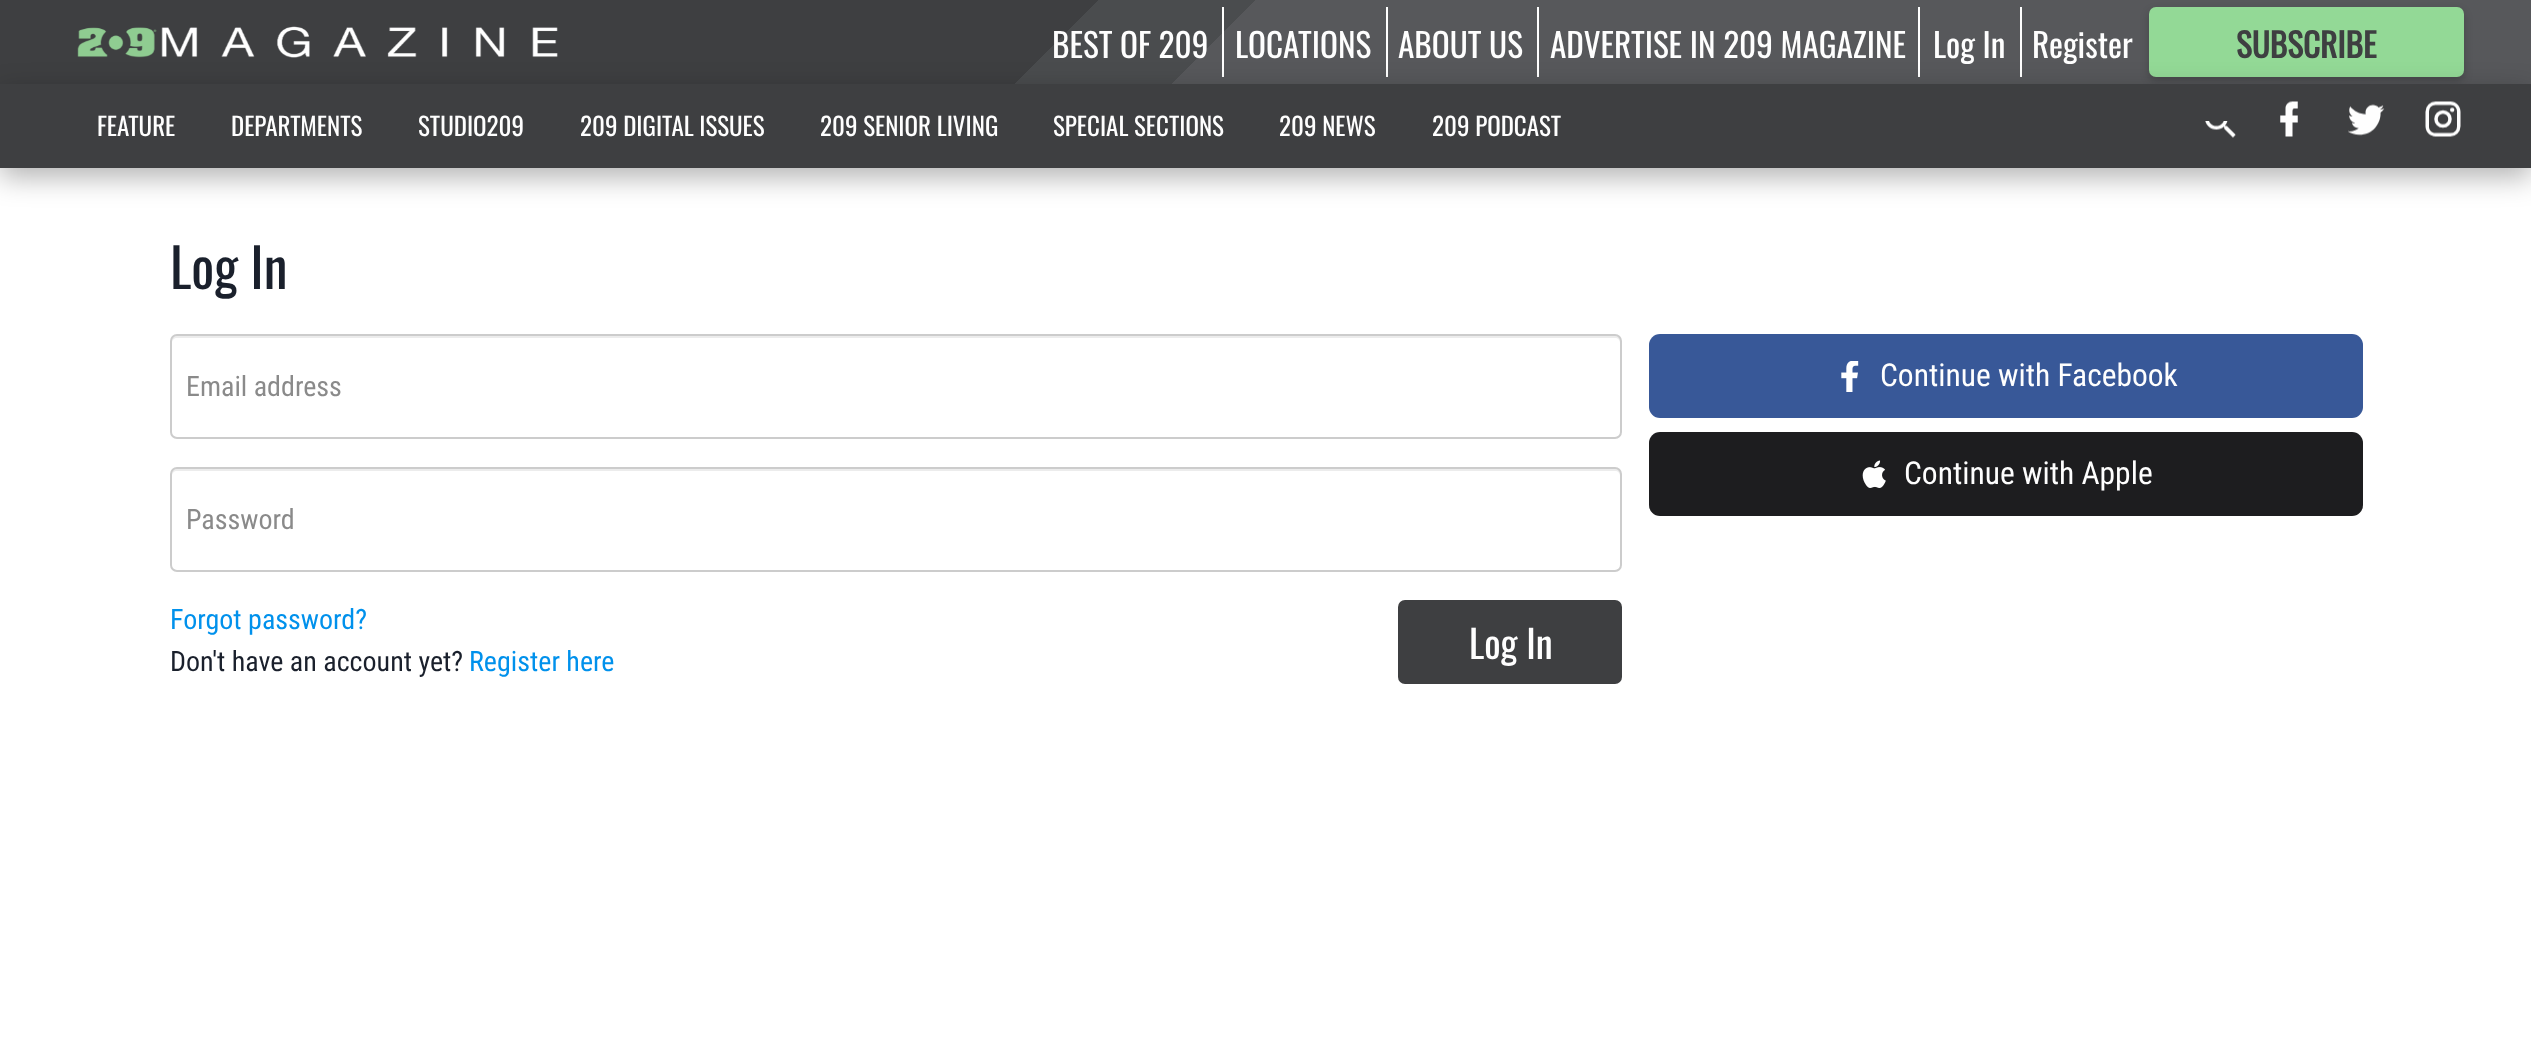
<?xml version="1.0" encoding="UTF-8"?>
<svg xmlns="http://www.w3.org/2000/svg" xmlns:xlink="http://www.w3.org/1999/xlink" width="2531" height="1063">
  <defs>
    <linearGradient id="g1" gradientUnits="userSpaceOnUse" x1="612" y1="-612" x2="1920" y2="696"><stop offset="0.42" stop-color="#3e3f41" /><stop offset="0.42" stop-color="#4a4c4e" /><stop offset="0.48" stop-color="#4a4c4e" /><stop offset="0.48" stop-color="#57585b" /></linearGradient>
  </defs>
  <rect width="100%" height="100%" fill="#ffffff" />
  <rect width="2531" height="84" fill="url(#g1)" />
  <image x="77" y="26" width="481" height="32" xlink:href="image1.png" />
  <rect x="1222" y="7" width="2" height="70" fill="#fefefe" />
  <rect x="1386" y="7" width="2" height="70" fill="#fefefe" />
  <rect x="1918" y="7" width="2" height="70" fill="#fefefe" />
  <rect x="1537" y="7" width="2" height="70" fill="#fefefe" />
  <rect x="2020" y="7" width="2" height="70" fill="#fefefe" />
  <rect x="2149" y="11" width="315" height="70" rx="7" fill="#000000" fill-opacity="0.2" filter="blur(4.5px)" />
  <rect x="2149" y="7" width="315" height="70" rx="7" fill="#93d996" />
  <rect y="93" width="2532" height="84" fill="#000000" fill-opacity="0.3" filter="blur(14px)" />
  <rect y="84" width="2531" height="84" fill="#3e3f41" />
  <image x="2205" y="121" width="31" height="17" xlink:href="image2.png" />
  <image x="2280" y="101" width="18" height="36" xlink:href="image3.png" />
  <image x="2348" y="104" width="37" height="32" xlink:href="image4.png" />
  <image x="2425" y="101" width="36" height="36" xlink:href="image5.png" />
  <path d="M 177 338 h 1438 c 3 0 5 2 5 5 v 91 l -1 3 c 1 -1 2 -3 2 -4 v -92 c 0 -3 -2 -5 -5 -5 h -1439 c -3 0 -5 2 -5 5 v 2 c 0 -3 2 -5 5 -5 z" fill="#ececec" />
  <rect x="171" y="335" width="1450" height="103" rx="6" fill="none" stroke="#cccccc" stroke-width="2" />
  <path d="M 177 471 h 1438 c 3 0 5 2 5 5 v 91 l -1 3 c 1 -1 2 -3 2 -4 v -92 c 0 -3 -2 -5 -5 -5 h -1439 c -3 0 -5 2 -5 5 v 2 c 0 -3 2 -5 5 -5 z" fill="#ececec" />
  <rect x="171" y="468" width="1450" height="103" rx="6" fill="none" stroke="#cccccc" stroke-width="2" />
  <rect x="1398" y="600" width="224" height="84" rx="7" fill="#3e3f41" />
  <rect x="1649" y="334" width="714" height="84" rx="11" fill="#385898" />
  <image x="1841" y="361" width="18" height="31" xlink:href="image6.png" />
  <rect x="1649" y="432" width="714" height="84" rx="11" fill="#1d1d1f" />
  <image x="1862" y="460" width="24" height="28" xlink:href="image7.png" />
  <text x="1052" y="58" style="font-family: Oswald; font-size: 33.25px; fill: #fefefe">BEST OF 209</text>
  <text x="1235" y="58" style="font-family: Oswald; font-size: 33.25px; fill: #fefefe">LOCATIONS</text>
  <text x="1398" y="58" style="font-family: Oswald; font-size: 33.25px; fill: #fefefe">ABOUT US</text>
  <text x="1550" y="58" style="font-family: Oswald; font-size: 33.25px; fill: #fefefe">ADVERTISE IN 209 MAGAZINE</text>
  <text x="1933" y="58" style="font-family: Oswald; font-size: 33.25px; fill: #fefefe">Log In</text>
  <text x="2032" y="58" style="font-family: Oswald; font-size: 33.25px; fill: #fefefe">Register</text>
  <text x="2236" y="58" style="font-family: Oswald; font-size: 33.25px; font-weight: bold; fill: #3e3f41">SUBSCRIBE</text>
  <text x="97" y="136" style="font-family: Oswald; font-size: 25px; fill: #fefefe">FEATURE</text>
  <text x="231" y="136" style="font-family: Oswald; font-size: 25px; fill: #fefefe">DEPARTMENTS</text>
  <text x="418" y="136" style="font-family: Oswald; font-size: 25px; fill: #fefefe">STUDIO209</text>
  <text x="580" y="136" style="font-family: Oswald; font-size: 25px; fill: #fefefe">209 DIGITAL ISSUES</text>
  <text x="820" y="136" style="font-family: Oswald; font-size: 25px; fill: #fefefe">209 SENIOR LIVING</text>
  <text x="1053" y="136" style="font-family: Oswald; font-size: 25px; fill: #fefefe">SPECIAL SECTIONS</text>
  <text x="1279" y="136" style="font-family: Oswald; font-size: 25px; fill: #fefefe">209 NEWS</text>
  <text x="1432" y="136" style="font-family: Oswald; font-size: 25px; fill: #fefefe">209 PODCAST</text>
  <text x="170" y="289" style="font-family: Oswald; font-size: 54px; fill: #1a202c">Log In</text>
  <text x="186" y="396" style="font-family: Roboto Condensed; font-size: 28px; fill: #8a8a8a">Email address</text>
  <text x="186" y="529" style="font-family: Roboto Condensed; font-size: 28px; fill: #8a8a8a">Password</text>
  <text x="170" y="629" style="font-family: Roboto Condensed; font-size: 28px; fill: #0091ec">Forgot password?</text>
  <text x="170" y="671" style="font-family: Roboto Condensed; font-size: 28px; fill: #1a202c">Don't have an account yet?</text>
  <text x="469" y="671" style="font-family: Roboto Condensed; font-size: 28px; fill: #0091ec">Register here</text>
  <text x="1469" y="659" style="font-family: Oswald; font-size: 38.5px; fill: #fefefe">Log In</text>
  <text x="1880" y="386" style="font-family: Roboto Condensed; font-size: 31.5px; fill: #fefefe">Continue with Facebook</text>
  <text x="1904" y="484" style="font-family: Roboto Condensed; font-size: 31.5px; fill: #fefefe">Continue with Apple</text>
</svg>
